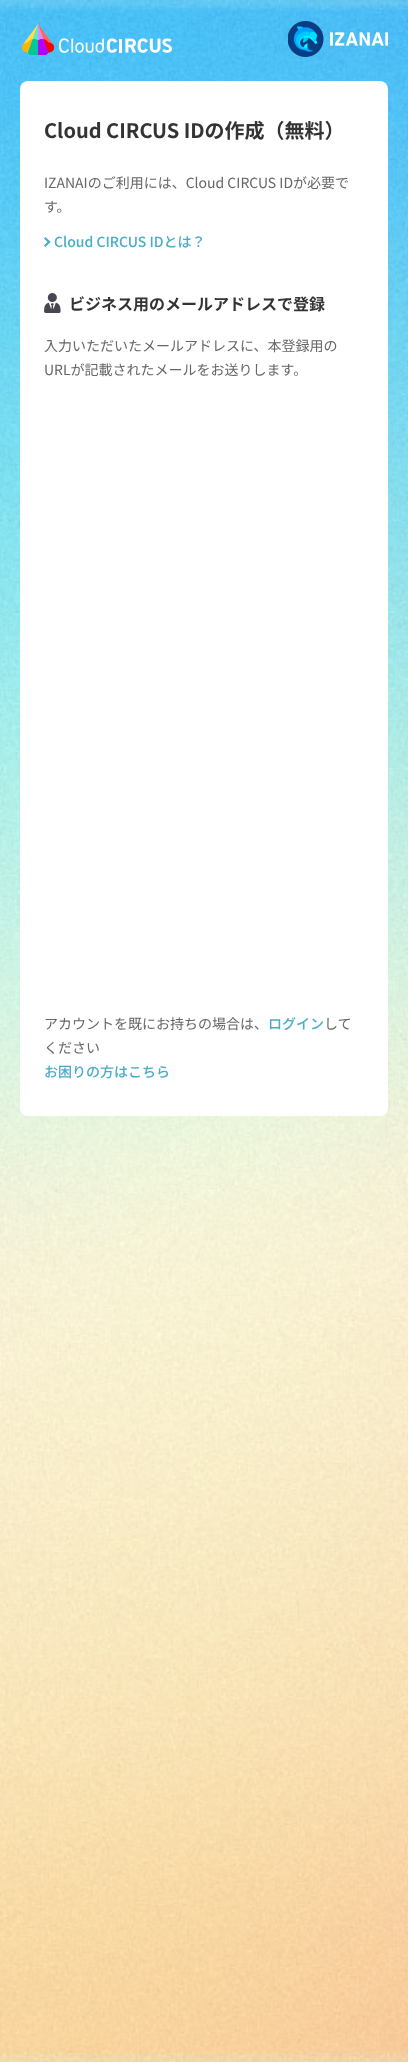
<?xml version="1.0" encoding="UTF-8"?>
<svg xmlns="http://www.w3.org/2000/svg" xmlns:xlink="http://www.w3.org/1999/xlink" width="408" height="2062">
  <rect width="100%" height="100%" fill="#ffffff" />
  <image x="0" y="0" width="408" height="2062" xlink:href="image1.png" />
  <image x="22" y="24" width="150" height="31" xlink:href="image2.png" />
  <image x="288" y="21" width="100" height="36" xlink:href="image3.png" />
  <rect x="20" y="81" width="368" height="1035" rx="8" fill="#ffffff" />
  <path d="M 45.5 237 l 5 5 l -1.5 1.5 l -5 -5 z" fill="#4aacc6" />
  <path d="M 49 240.5 l 1.5 1.5 l -5 5 l -1.5 -1.5 z" fill="#4aacc6" />
  <image x="44" y="293" width="17" height="20" xlink:href="image4.png" />
  <text x="44" y="138" style="font-family: Noto Sans JP; font-size: 20px; font-weight: bold; fill: #333333">Cloud CIRCUS IDの作成（無料）</text>
  <text x="44" y="188" style="font-family: Noto Sans JP; font-size: 14px; fill: #666666">IZANAIのご利用には、Cloud CIRCUS IDが必要で</text>
  <text x="44" y="212" style="font-family: Noto Sans JP; font-size: 14px; fill: #666666">す。</text>
  <text x="54" y="247" style="font-family: Noto Sans JP; font-size: 14px; font-weight: 500; fill: #4aacc6">Cloud CIRCUS IDとは？</text>
  <text x="69" y="310" style="font-family: Noto Sans JP; font-size: 16px; font-weight: bold; fill: #333333">ビジネス用のメールアドレスで登録</text>
  <text x="44" y="351" style="font-family: Noto Sans JP; font-size: 14px; fill: #666666">入力いただいたメールアドレスに、本登録用の</text>
  <text x="44" y="375" style="font-family: Noto Sans JP; font-size: 14px; fill: #666666">URLが記載されたメールをお送りします。</text>
  <text x="44" y="1029" style="font-family: Noto Sans JP; font-size: 14px; fill: #666666">アカウントを既にお持ちの場合は、</text>
  <text x="268" y="1029" style="font-family: Noto Sans JP; font-size: 14px; font-weight: 500; fill: #4aacc6">ログイン</text>
  <text x="324" y="1029" style="font-family: Noto Sans JP; font-size: 14px; fill: #666666">して</text>
  <text x="44" y="1053" style="font-family: Noto Sans JP; font-size: 14px; fill: #666666">ください</text>
  <text x="44" y="1077" style="font-family: Noto Sans JP; font-size: 14px; font-weight: 500; fill: #4aacc6">お困りの方はこちら</text>
</svg>
